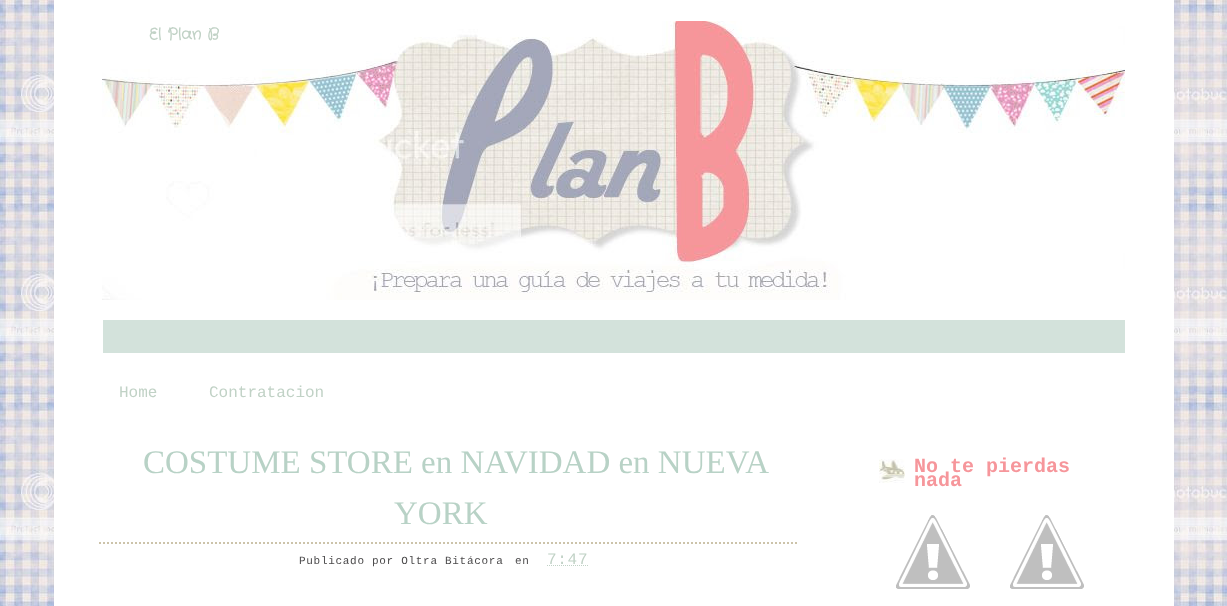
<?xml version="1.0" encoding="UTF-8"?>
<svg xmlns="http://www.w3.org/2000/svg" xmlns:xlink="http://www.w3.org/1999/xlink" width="1227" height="606">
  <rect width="100%" height="100%" fill="#ffffff" />
  <image x="0" y="0" width="1227" height="606" xlink:href="image1.png" />
  <rect x="54" width="1120" height="606" fill="#ffffff" />
  <image x="102" y="21" width="1023" height="279" xlink:href="image2.png" />
  <rect x="103" y="320" width="1022" height="33" fill="#d3e2db" />
  <path d="M 99 543 h 700" fill="none" stroke="#ccc3aa" stroke-width="2" stroke-dasharray="2 2" />
  <path d="M 547 565.5 h 41.5" fill="none" stroke="#c1d2c6" stroke-dasharray="1 1" />
  <image x="879" y="459" width="26" height="24" xlink:href="image3.png" />
  <image x="896" y="515" width="74" height="74" xlink:href="image4.png" />
  <image x="1010" y="515" width="74" height="74" xlink:href="image4.png" />
  <text x="149" y="39" style="font-family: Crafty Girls; font-size: 16px; font-weight: bold; fill: #c1d2c6">El Plan B</text>
  <text x="119" y="397" style="font-family: Liberation Mono; font-size: 16px; fill: #c1d2c6">Home</text>
  <text x="209" y="397" style="font-family: Liberation Mono; font-size: 16px; fill: #c1d2c6">Contratacion</text>
  <text x="143" y="473" style="font-family: Liberation Serif; font-size: 33px; fill: #b8d2c6">COSTUME STORE en NAVIDAD en NUEVA</text>
  <text x="394" y="524" style="font-family: Liberation Serif; font-size: 33px; fill: #b8d2c6">YORK</text>
  <text x="299" y="564" style="font-family: Liberation Mono; font-size: 11px; letter-spacing: 0.7px; fill: #4c4b4c">Publicado por Oltra Bitácora</text>
  <text x="515" y="564" style="font-family: Liberation Mono; font-size: 11px; letter-spacing: 0.7px; fill: #4c4b4c">en</text>
  <text x="547" y="564" style="font-family: Liberation Mono; font-size: 16px; letter-spacing: 0.7px; fill: #c1d2c6">7:47</text>
  <text x="914" y="472" style="font-family: Liberation Mono; font-size: 20px; font-weight: bold; fill: #f6969b">No te pierdas</text>
  <text x="914" y="486" style="font-family: Liberation Mono; font-size: 20px; font-weight: bold; fill: #f6969b">nada</text>
</svg>
